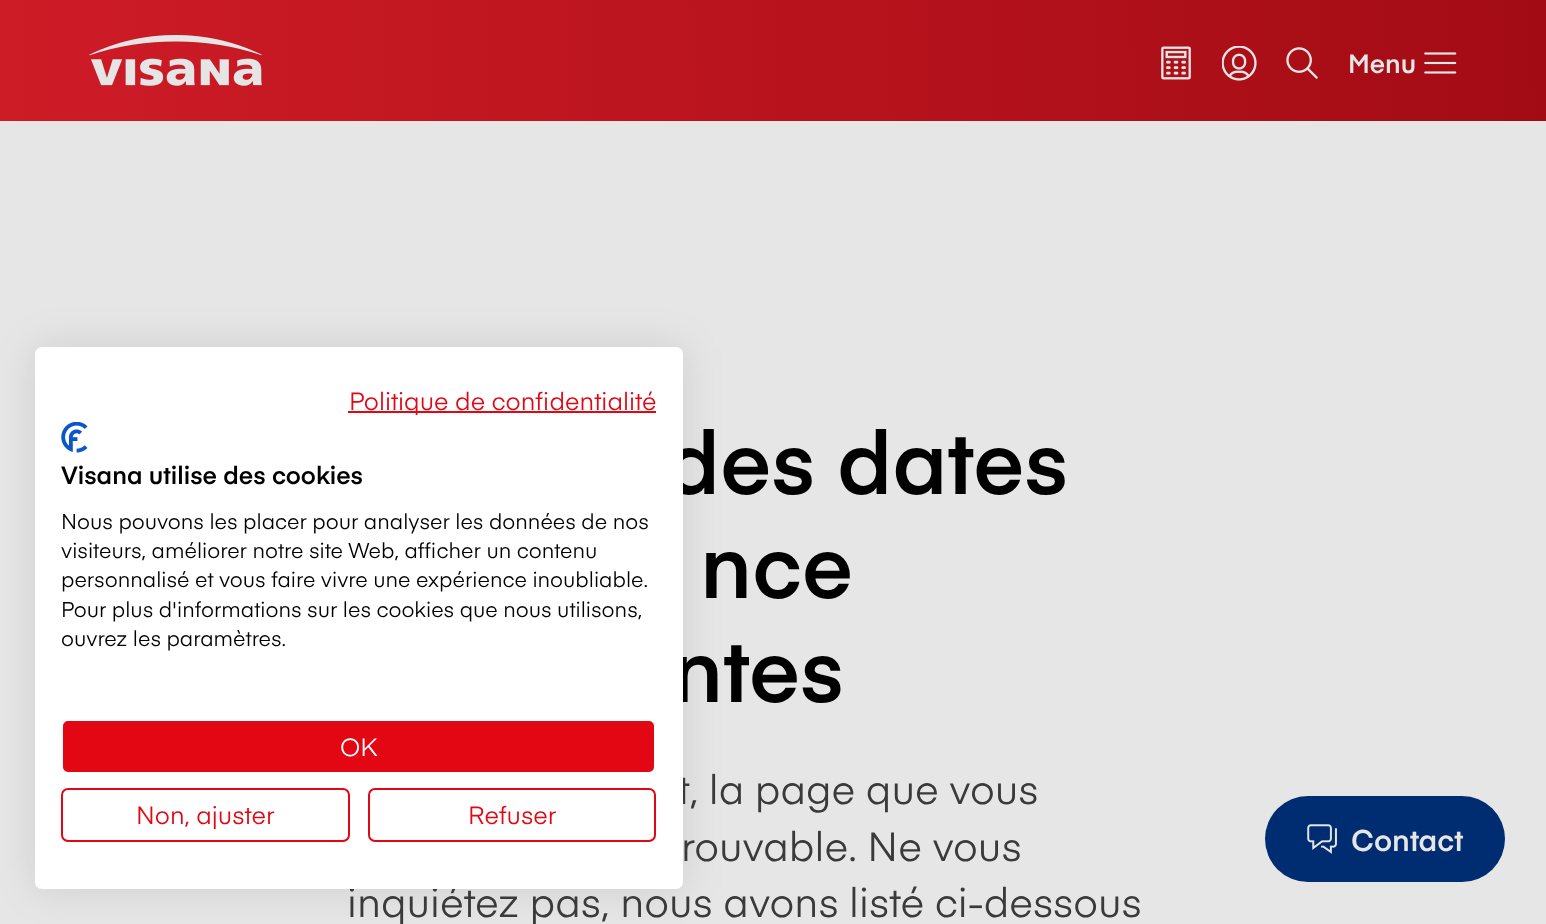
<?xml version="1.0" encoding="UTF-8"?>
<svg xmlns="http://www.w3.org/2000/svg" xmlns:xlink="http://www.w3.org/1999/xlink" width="1546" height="924">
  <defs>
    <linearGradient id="g1" gradientUnits="userSpaceOnUse" x1="-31" y1="74" x2="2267" y2="34"><stop offset="0" stop-color="#cf1c27" /><stop offset="1" stop-color="#8f040c" /></linearGradient>
  </defs>
  <rect width="100%" height="100%" fill="#e6e6e6" />
  <rect width="1546" height="121" fill="url(#g1)" />
  <image x="89" y="35" width="173" height="51" xlink:href="image1.png" />
  <image x="1161" y="46" width="30" height="34" xlink:href="image2.png" />
  <image x="1222" y="46" width="35" height="35" xlink:href="image3.png" />
  <image x="1286" y="47" width="32" height="32" xlink:href="image4.png" />
  <image x="1424" y="52" width="33" height="22" xlink:href="image5.png" />
  <rect x="35" y="347" width="648" height="542" rx="7" fill="#000000" fill-opacity="0.1" filter="blur(21px)" />
  <rect x="1265" y="796" width="240" height="86" rx="43" fill="#002c71" />
  <image x="1307" y="824" width="30" height="30" xlink:href="image7.png" />
  <text x="1348" y="73" style="font-family: 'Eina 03'; font-size: 26px; font-weight: 600; fill: #e6e6e6">Menu</text>
  <text x="665" y="494" style="font-family: 'Eina 03'; font-size: 86.75px; font-weight: 600; fill: #000000">des dates</text>
  <text x="700" y="598" style="font-family: 'Eina 03'; font-size: 86.75px; font-weight: 600; fill: #000000">nce</text>
  <text x="671" y="702" style="font-family: 'Eina 03'; font-size: 86.75px; font-weight: 600; fill: #000000">ntes</text>
  <text x="678" y="804" style="font-family: 'Eina 03'; font-size: 40.2px; fill: #3a3a3a">t, la page que vous</text>
  <text x="681" y="861" style="font-family: 'Eina 03'; font-size: 40.2px; fill: #3a3a3a">rouvable. Ne vous</text>
  <text x="347" y="917" style="font-family: 'Eina 03'; font-size: 40.2px; fill: #3a3a3a">inquiétez pas, nous avons listé ci-dessous</text>
  <rect x="35" y="347" width="648" height="542" rx="7" fill="#ffffff" />
  <rect x="369" y="789" width="286" height="52" rx="6" fill="none" stroke="#e30613" stroke-width="2" />
  <text x="468" y="824" style="font-family: 'Eina 03'; font-size: 24.5px; fill: #e30613">Refuser</text>
  <rect x="62" y="789" width="287" height="52" rx="6" fill="none" stroke="#e30613" stroke-width="2" />
  <text x="136" y="824" style="font-family: 'Eina 03'; font-size: 24.5px; fill: #e30613">Non, ajuster</text>
  <rect x="62" y="720" width="593" height="53" rx="6" fill="#e30613" stroke="#ffffff" stroke-width="2" />
  <text x="340" y="756" style="font-family: 'Eina 03'; font-size: 24.5px; fill: #ffffff">OK</text>
  <text x="61" y="646" style="font-family: 'Eina 03'; font-size: 21px; fill: #000000">ouvrez les paramètres.</text>
  <text x="61" y="617" style="font-family: 'Eina 03'; font-size: 21px; fill: #000000">Pour plus d'informations sur les cookies que nous utilisons,</text>
  <text x="61" y="587" style="font-family: 'Eina 03'; font-size: 21px; fill: #000000">personnalisé et vous faire vivre une expérience inoubliable.</text>
  <text x="61" y="558" style="font-family: 'Eina 03'; font-size: 21px; fill: #000000">visiteurs, améliorer notre site Web, afficher un contenu</text>
  <text x="61" y="529" style="font-family: 'Eina 03'; font-size: 21px; fill: #000000">Nous pouvons les placer pour analyser les données de nos</text>
  <text x="61" y="484" style="font-family: 'Eina 03'; font-size: 24.5px; font-weight: 600; fill: #000000">Visana utilise des cookies</text>
  <image x="61" y="422" width="27" height="31" xlink:href="image6.png" />
  <rect x="348" y="411" width="308" height="2" fill="#e30613" />
  <text x="349" y="410" style="font-family: 'Eina 03'; font-size: 24.5px; fill: #e30613">Politique de confidentialité</text>
  <text x="1351" y="851" style="font-family: 'Eina 03'; font-size: 29.5px; font-weight: 600; fill: #e6e6e6">Contact</text>
</svg>
